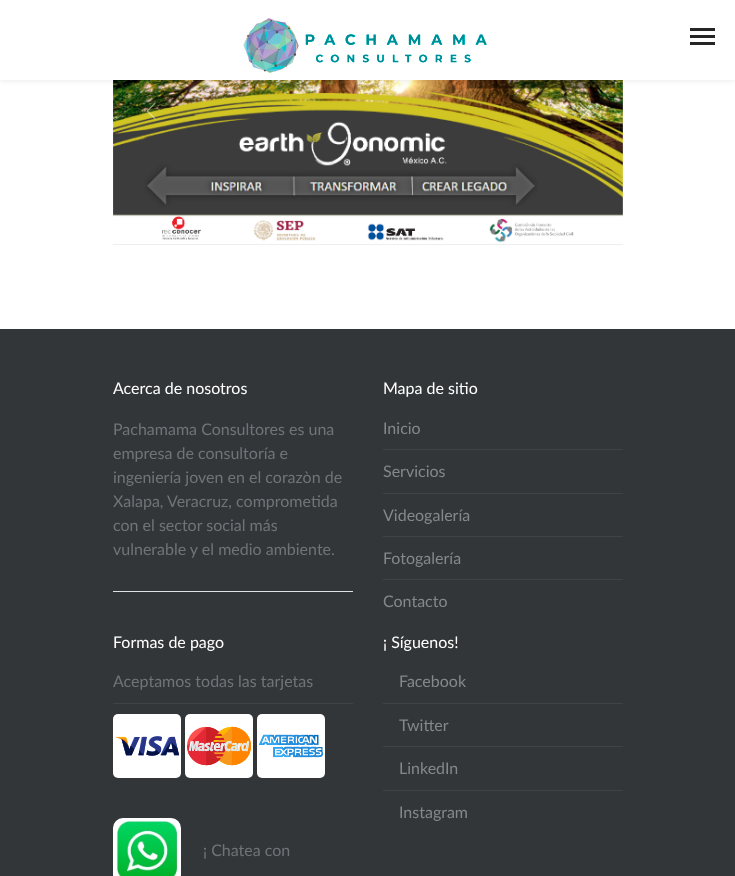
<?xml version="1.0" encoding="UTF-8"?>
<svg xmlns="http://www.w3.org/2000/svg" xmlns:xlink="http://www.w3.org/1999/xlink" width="735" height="876">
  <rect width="100%" height="100%" fill="#ffffff" />
  <image x="113" y="80" width="510" height="165" xlink:href="image2.png" />
  <rect y="1" width="735" height="80" fill="#000000" fill-opacity="0.08" filter="blur(2.5px)" />
  <rect width="735" height="80" fill="#ffffff" />
  <image x="243" y="18" width="244" height="55" xlink:href="image1.png" />
  <rect x="690" y="35" width="25" height="3" fill="#252525" />
  <rect x="690" y="28" width="25" height="3" fill="#252525" />
  <rect x="690" y="42" width="25" height="3" fill="#252525" />
  <image x="146" y="103" width="10" height="16" xlink:href="image3.png" />
  <image x="579" y="103" width="10" height="16" xlink:href="image4.png" />
  <rect y="329" width="735" height="547" fill="#323639" />
  <rect x="113" y="591" width="240" height="1" fill="#dee2e6" />
  <rect x="383" y="449" width="240" height="1" fill="#3e4347" />
  <rect x="383" y="493" width="240" height="1" fill="#3e4347" />
  <rect x="383" y="536" width="240" height="1" fill="#3e4347" />
  <rect x="383" y="579" width="240" height="1" fill="#3e4347" />
  <rect x="113" y="703" width="240" height="1" fill="#3e4347" />
  <rect x="113" y="714" width="68" height="64" rx="5" fill="#ffffff" />
  <rect x="185" y="714" width="68" height="64" rx="5" fill="#ffffff" />
  <rect x="257" y="714" width="68" height="64" rx="5" fill="#ffffff" />
  <image x="115" y="736" width="64" height="20" xlink:href="image5.png" />
  <image x="187" y="726" width="64" height="40" xlink:href="image6.png" />
  <image x="259" y="734" width="64" height="24" xlink:href="image7.png" />
  <image x="113" y="818" width="68" height="58" xlink:href="image8.png" />
  <rect x="383" y="703" width="240" height="1" fill="#3e4347" />
  <rect x="383" y="746" width="240" height="1" fill="#3e4347" />
  <rect x="383" y="790" width="240" height="1" fill="#3e4347" />
  <text x="113" y="394" style="font-family: Lato; font-size: 16px; fill: #ffffff">Acerca de nosotros</text>
  <text x="113" y="435" style="font-family: Lato; font-size: 16px; fill: #6f7477">Pachamama Consultores es una</text>
  <text x="113" y="459" style="font-family: Lato; font-size: 16px; fill: #6f7477">empresa de consultoría e</text>
  <text x="113" y="483" style="font-family: Lato; font-size: 16px; fill: #6f7477">ingeniería joven en el corazòn de</text>
  <text x="113" y="507" style="font-family: Lato; font-size: 16px; fill: #6f7477">Xalapa, Veracruz, comprometida</text>
  <text x="113" y="531" style="font-family: Lato; font-size: 16px; fill: #6f7477">con el sector social más</text>
  <text x="113" y="555" style="font-family: Lato; font-size: 16px; fill: #6f7477">vulnerable y el medio ambiente.</text>
  <text x="383" y="394" style="font-family: Lato; font-size: 16px; fill: #ffffff">Mapa de sitio</text>
  <text x="383" y="434" style="font-family: Lato; font-size: 16px; fill: #83888b">Inicio</text>
  <text x="383" y="477" style="font-family: Lato; font-size: 16px; fill: #83888b">Servicios</text>
  <text x="383" y="521" style="font-family: Lato; font-size: 16px; fill: #83888b">Videogalería</text>
  <text x="383" y="564" style="font-family: Lato; font-size: 16px; fill: #83888b">Fotogalería</text>
  <text x="383" y="607" style="font-family: Lato; font-size: 16px; fill: #83888b">Contacto</text>
  <text x="113" y="648" style="font-family: Lato; font-size: 16px; fill: #ffffff">Formas de pago</text>
  <text x="113" y="687" style="font-family: Lato; font-size: 16px; fill: #6f7477">Aceptamos todas las tarjetas</text>
  <text x="203" y="856" style="font-family: Lato; font-size: 16px; fill: #6f7477">¡ Chatea con</text>
  <text x="383" y="648" style="font-family: Lato; font-size: 16px; fill: #ffffff">¡ Síguenos!</text>
  <text x="399" y="687" style="font-family: Lato; font-size: 16px; fill: #83888b">Facebook</text>
  <text x="399" y="731" style="font-family: Lato; font-size: 16px; fill: #83888b">Twitter</text>
  <text x="399" y="774" style="font-family: Lato; font-size: 16px; fill: #83888b">LinkedIn</text>
  <text x="399" y="818" style="font-family: Lato; font-size: 16px; fill: #83888b">Instagram</text>
</svg>
